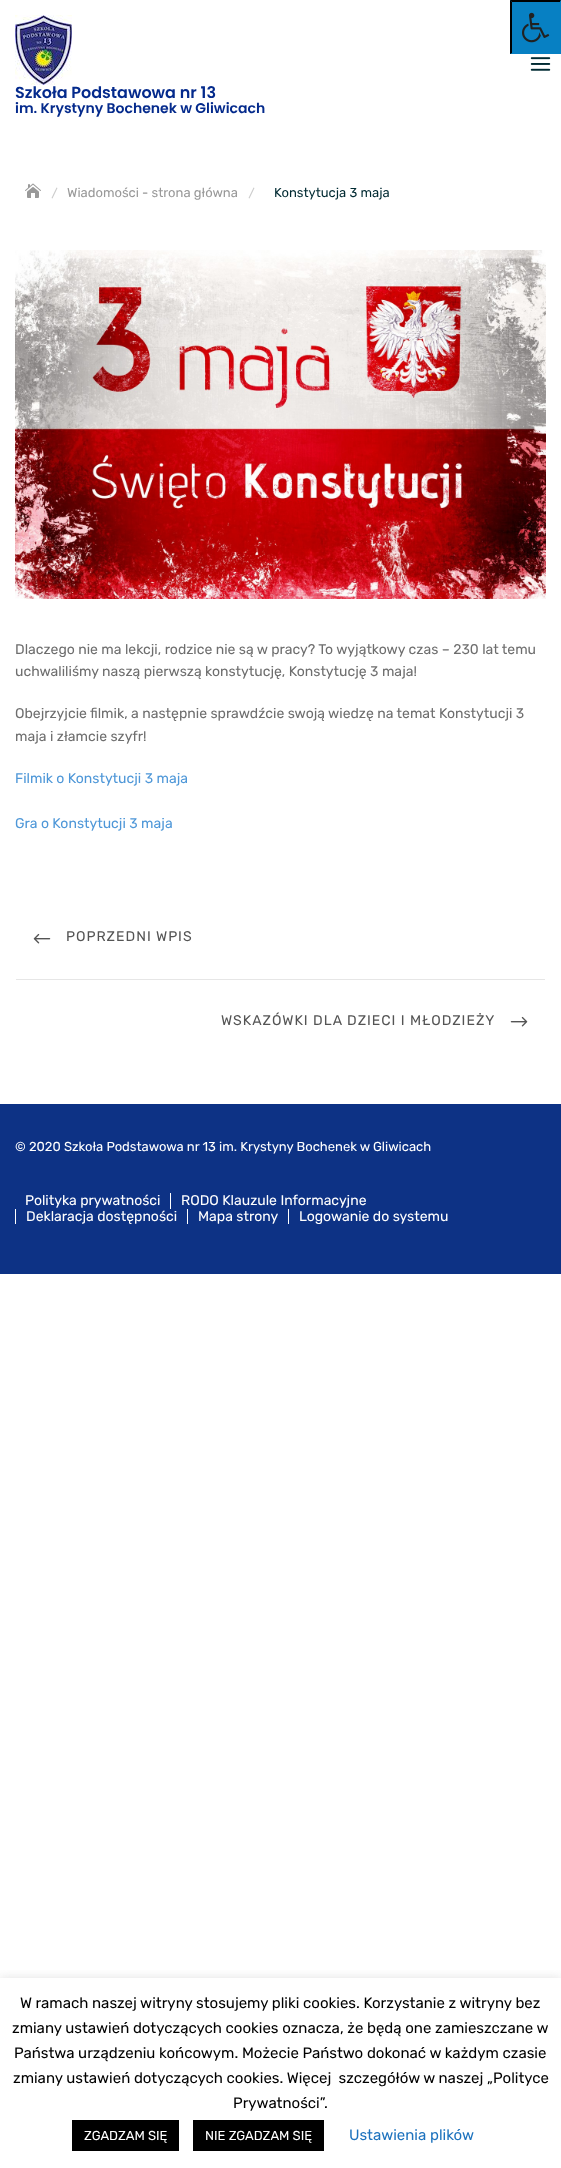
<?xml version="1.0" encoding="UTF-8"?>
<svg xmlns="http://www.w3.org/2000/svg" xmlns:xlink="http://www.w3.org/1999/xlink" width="561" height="2168">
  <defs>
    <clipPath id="clip1"><rect x="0" y="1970" width="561" height="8" /></clipPath>
  </defs>
  <rect width="100%" height="100%" fill="#ffffff" />
  <rect x="510" width="51" height="54" fill="#0780c3" />
  <path d="M 510 0 h 51 l -1 2 h -48 z" fill="#000000" />
  <path d="M 561 0 v 54 l -1 -1 v -51 z" fill="#0780c3" />
  <path d="M 510 54 v -54 l 2 2 v 51 z" fill="#000000" />
  <image x="522" y="12" width="28" height="31" xlink:href="image1.png" />
  <image x="530" y="57" width="21" height="14" xlink:href="image2.png" />
  <image x="15" y="15" width="57" height="70" xlink:href="image3.png" />
  <image x="25" y="183" width="16" height="15" xlink:href="image4.png" />
  <path d="M 56.5 187.5 l 1 0.5 l -5 10.5 l -1 -0.5 z" fill="#cccccc" />
  <path d="M 253.5 187.5 l 1 0.5 l -5 10.5 l -1 -0.5 z" fill="#cccccc" />
  <image x="15" y="250" width="531" height="349" xlink:href="image5.png" />
  <image x="33" y="933" width="18" height="11" xlink:href="image6.png" />
  <rect x="16" y="979" width="529" height="1" fill="#e6e6e6" />
  <image x="510" y="1016" width="18" height="11" xlink:href="image7.png" />
  <rect y="1104" width="561" height="170" fill="#0d3285" />
  <rect x="170" y="1193" width="1" height="16" fill="#ffffff" />
  <rect x="15" y="1209" width="1" height="15" fill="#ffffff" />
  <rect x="187" y="1209" width="1" height="15" fill="#ffffff" />
  <rect x="288" y="1209" width="1" height="15" fill="#ffffff" />
  <g clip-path="url(#clip1)">
    <rect y="1977" width="561" height="190" fill="#acabab" fill-opacity="0.3" filter="blur(5px)" />
  </g>
  <rect x="72" y="2120" width="107" height="31" fill="#000000" />
  <rect x="193" y="2120" width="131" height="31" fill="#000000" />
  <text x="15" y="98" style="font-family: Poppins; font-size: 16px; font-weight: 600; fill: #042a8c">Szkoła Podstawowa nr 13</text>
  <text x="15" y="113" style="font-family: Poppins; font-size: 14px; font-weight: 600; fill: #042a8c">im. Krystyny Bochenek w Gliwicach</text>
  <text x="67" y="197" style="font-family: Rubik; font-size: 13px; fill: #999999">Wiadomości - strona główna</text>
  <text x="274" y="197" style="font-family: Rubik; font-size: 13px; fill: #002a32">Konstytucja 3 maja</text>
  <text x="15" y="654" style="font-family: Rubik; font-size: 14px; fill: #6e6e6e">Dlaczego nie ma lekcji, rodzice nie są w pracy? To wyjątkowy czas – 230 lat temu</text>
  <text x="15" y="676" style="font-family: Rubik; font-size: 14px; fill: #6e6e6e">uchwaliliśmy naszą pierwszą konstytucję, Konstytucję 3 maja!</text>
  <text x="15" y="718" style="font-family: Rubik; font-size: 14px; fill: #6e6e6e">Obejrzyjcie filmik, a następnie sprawdźcie swoją wiedzę na temat Konstytucji 3</text>
  <text x="15" y="741" style="font-family: Rubik; font-size: 14px; fill: #6e6e6e">maja i złamcie szyfr!</text>
  <text x="15" y="783" style="font-family: Rubik; font-size: 14px; fill: #4e97d8">Filmik o Konstytucji 3 maja</text>
  <text x="15" y="828" style="font-family: Rubik; font-size: 14px; fill: #4e97d8">Gra o Konstytucji 3 maja</text>
  <text x="66" y="941" style="font-family: Rubik; font-size: 14px; letter-spacing: 1px; fill: #545454">POPRZEDNI WPIS</text>
  <text x="221" y="1025" style="font-family: Rubik; font-size: 14px; letter-spacing: 1px; fill: #545454">WSKAZÓWKI DLA DZIECI I MŁODZIEŻY</text>
  <text x="15" y="1151" style="font-family: Rubik; font-size: 13px; fill: #ffffff">© 2020 Szkoła Podstawowa nr 13 im. Krystyny Bochenek w Gliwicach</text>
  <text x="25" y="1205" style="font-family: Rubik; font-size: 14px; fill: #ffffff">Polityka prywatności</text>
  <text x="181" y="1205" style="font-family: Rubik; font-size: 14px; fill: #ffffff">RODO Klauzule Informacyjne</text>
  <text x="26" y="1221" style="font-family: Rubik; font-size: 14px; fill: #ffffff">Deklaracja dostępności</text>
  <text x="198" y="1221" style="font-family: Rubik; font-size: 14px; fill: #ffffff">Mapa strony</text>
  <text x="299" y="1221" style="font-family: Rubik; font-size: 14px; fill: #ffffff">Logowanie do systemu</text>
  <text x="20" y="2008" style="font-family: Rubik; font-size: 15px; fill: #000000">W ramach naszej witryny stosujemy pliki cookies. Korzystanie z witryny bez</text>
  <text x="12" y="2033" style="font-family: Rubik; font-size: 15px; fill: #000000">zmiany ustawień dotyczących cookies oznacza, że będą one zamieszczane w</text>
  <text x="14" y="2058" style="font-family: Rubik; font-size: 15px; fill: #000000">Państwa urządzeniu końcowym. Możecie Państwo dokonać w każdym czasie</text>
  <text x="13" y="2083" style="font-family: Rubik; font-size: 15px; fill: #000000" xml:space="preserve">zmiany ustawień dotyczących cookies. Więcej  szczegółów w naszej „Polityce</text>
  <text x="233" y="2108" style="font-family: Rubik; font-size: 15px; fill: #000000">Prywatności”.</text>
  <text x="84" y="2140" style="font-family: Rubik; font-size: 13px; fill: #ffffff">ZGADZAM SIĘ</text>
  <text x="205" y="2140" style="font-family: Rubik; font-size: 13px; fill: #ffffff">NIE ZGADZAM SIĘ</text>
  <text x="349" y="2140" style="font-family: Rubik; font-size: 15px; fill: #1e73be">Ustawienia plików</text>
</svg>
